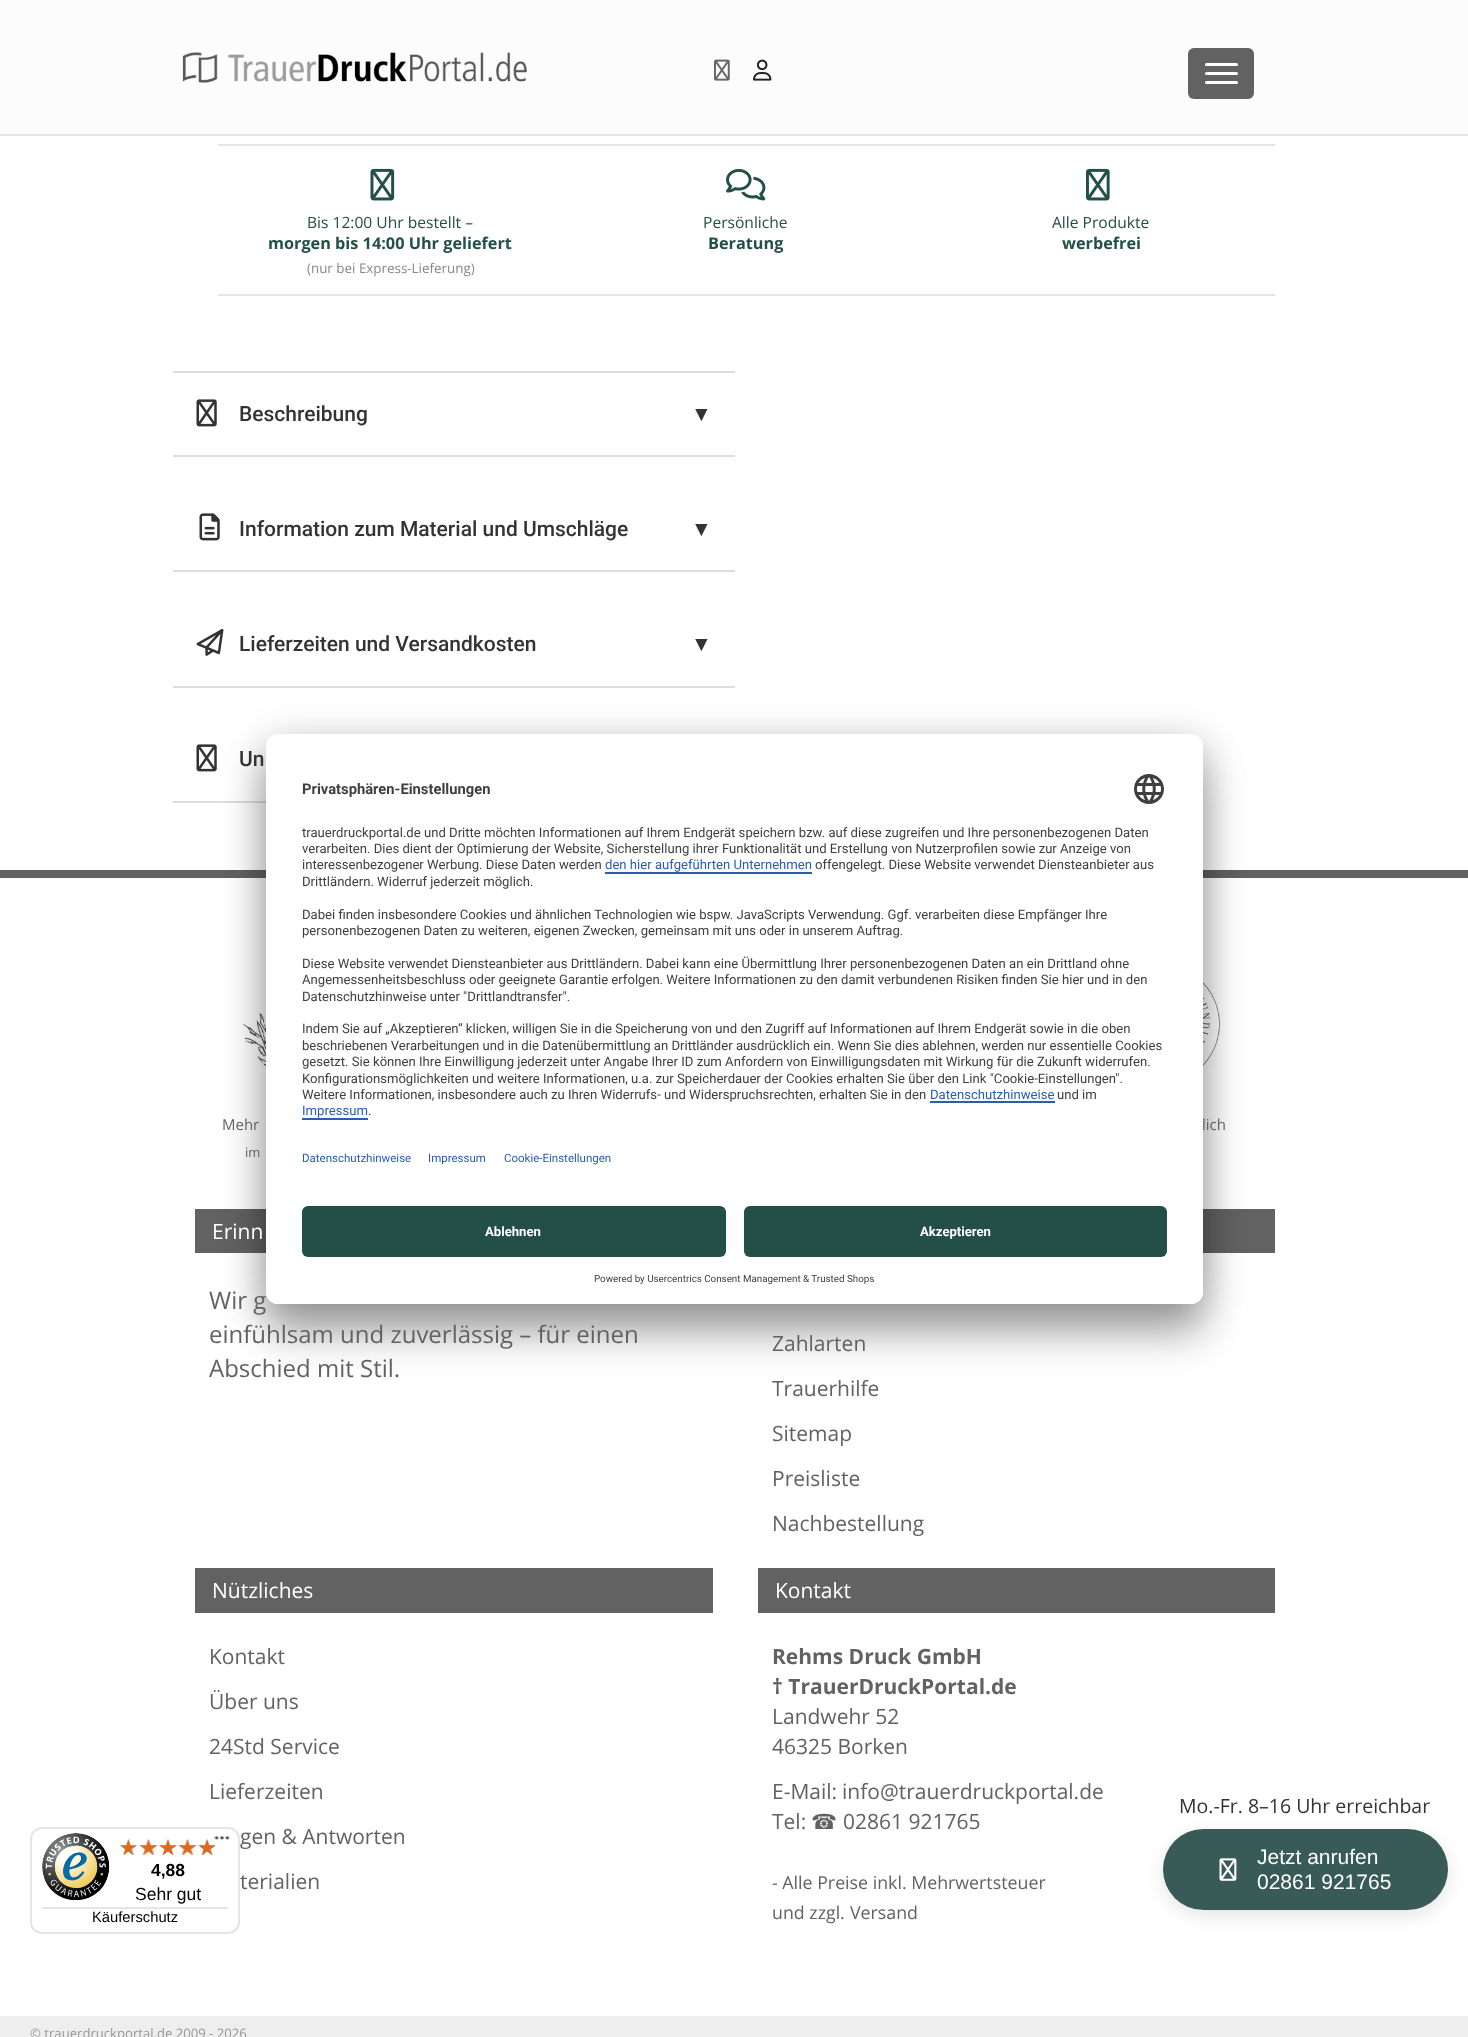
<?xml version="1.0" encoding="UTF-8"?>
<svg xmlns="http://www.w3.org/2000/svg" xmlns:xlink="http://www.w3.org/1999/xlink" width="1468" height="2037">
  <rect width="100%" height="100%" fill="#ffffff" />
  <rect width="1468" height="134" fill="#fcfcfc" />
  <rect y="134" width="1468" height="2" fill="#e5e5e5" />
  <image x="182" y="52" width="345" height="31" xlink:href="image1.png" />
  <image x="714" y="59" width="16" height="22" xlink:href="image2.png" />
  <image x="753" y="59" width="19" height="22" xlink:href="image3.png" />
  <rect x="1188" y="48" width="66" height="51" rx="6" fill="#626262" />
  <rect x="1205" y="63" width="33" height="3" rx="1.5" fill="#ffffff" />
  <rect x="1205" y="72" width="33" height="3" rx="1.5" fill="#ffffff" />
  <rect x="1205" y="81" width="33" height="3" rx="1.5" fill="#ffffff" />
  <rect x="218" y="144" width="1057" height="2" fill="#e2e6e8" />
  <rect x="218" y="294" width="1057" height="2" fill="#e2e6e8" />
  <image x="370" y="168" width="25" height="33" xlink:href="image4.png" />
  <image x="726" y="168" width="40" height="33" xlink:href="image5.png" />
  <image x="1086" y="168" width="24" height="33" xlink:href="image6.png" />
  <rect x="173" y="371" width="562" height="2" fill="#dddddd" />
  <rect x="173" y="455" width="562" height="2" fill="#dddddd" />
  <image x="196" y="399" width="21" height="28" xlink:href="image7.png" />
  <rect x="173" y="570" width="562" height="2" fill="#dddddd" />
  <image x="199" y="513" width="21" height="28" xlink:href="image8.png" />
  <rect x="173" y="686" width="562" height="2" fill="#dddddd" />
  <image x="196" y="628" width="28" height="28" xlink:href="image9.png" />
  <rect x="173" y="801" width="93" height="2" fill="#dddddd" />
  <image x="196" y="744" width="21" height="28" xlink:href="image7.png" />
  <rect y="870" width="1468" height="8" fill="#626262" />
  <image x="243" y="965" width="23" height="124" xlink:href="image20.png" />
  <image x="1203" y="964" width="18" height="122" xlink:href="image21.png" />
  <rect x="195" y="1209" width="71" height="44" fill="#626262" />
  <rect x="1203" y="1209" width="72" height="44" fill="#626262" />
  <rect x="266" y="764" width="937" height="570" rx="12" fill="#000000" fill-opacity="0.3" filter="blur(21px)" />
  <rect x="266" y="741" width="937" height="570" rx="12" fill="#000000" fill-opacity="0.22" filter="blur(19.5px)" />
  <rect x="31" y="1828" width="208" height="105" rx="11" fill="none" stroke="#e5e5e5" stroke-width="2" />
  <image x="200" y="1839" width="16" height="16" xlink:href="image15.png" />
  <image x="198" y="1839" width="17" height="17" xlink:href="image19.png" />
  <image x="214" y="1836" width="16" height="4" xlink:href="image11.png" />
  <image x="42" y="1833" width="68" height="68" xlink:href="image12.png" />
  <image x="120" y="1839" width="18" height="16" xlink:href="image13.png" />
  <image x="139" y="1839" width="19" height="16" xlink:href="image14.png" />
  <image x="159" y="1839" width="18" height="16" xlink:href="image13.png" />
  <image x="178" y="1839" width="19" height="16" xlink:href="image14.png" />
  <image x="120" y="1839" width="17" height="17" xlink:href="image16.png" />
  <image x="139" y="1839" width="19" height="16" xlink:href="image17.png" />
  <image x="159" y="1839" width="18" height="17" xlink:href="image18.png" />
  <image x="178" y="1839" width="19" height="16" xlink:href="image17.png" />
  <rect x="42" y="1907" width="186" height="2" fill="#e5e5e5" />
  <rect x="195" y="1568" width="518" height="45" fill="#626262" />
  <rect x="758" y="1568" width="517" height="45" fill="#626262" />
  <rect x="1163" y="1835" width="285" height="81" rx="40.5" fill="#000000" fill-opacity="0.1" filter="blur(9px)" />
  <rect x="1163" y="1829" width="285" height="81" rx="40.5" fill="#395b57" />
  <image x="1219" y="1858" width="18" height="23" xlink:href="image22.png" />
  <rect y="2016" width="1468" height="21" fill="#eeeeee" />
  <text x="307" y="228" style="font-family: Open Sans; font-size: 15.6px; fill: #244f48">Bis 12:00 Uhr bestellt –</text>
  <text x="268" y="249" style="font-family: Open Sans; font-size: 16.25px; font-weight: bold; fill: #244f48">morgen bis 14:00 Uhr geliefert</text>
  <text x="307" y="273" style="font-family: Open Sans; font-size: 13.4px; fill: #888888">(nur bei Express-Lieferung)</text>
  <text x="703" y="228" style="font-family: Open Sans; font-size: 15.6px; fill: #244f48">Persönliche</text>
  <text x="708" y="249" style="font-family: Open Sans; font-size: 16.25px; font-weight: bold; fill: #244f48">Beratung</text>
  <text x="1052" y="228" style="font-family: Open Sans; font-size: 15.6px; fill: #244f48">Alle Produkte</text>
  <text x="1062" y="249" style="font-family: Open Sans; font-size: 16.25px; font-weight: bold; fill: #244f48">werbefrei</text>
  <text x="239" y="421" style="font-family: Roboto; font-size: 21px; font-weight: 500; fill: #333333">Beschreibung</text>
  <text x="691" y="421" style="font-family: Liberation Sans; font-size: 21px; fill: #333333">▼</text>
  <text x="239" y="536" style="font-family: Roboto; font-size: 21px; font-weight: 500; fill: #333333">Information zum Material und Umschläge</text>
  <text x="691" y="536" style="font-family: Liberation Sans; font-size: 21px; fill: #333333">▼</text>
  <text x="239" y="651" style="font-family: Roboto; font-size: 21px; font-weight: 500; fill: #333333">Lieferzeiten und Versandkosten</text>
  <text x="691" y="651" style="font-family: Liberation Sans; font-size: 21px; fill: #333333">▼</text>
  <text x="239" y="766" style="font-family: Roboto; font-size: 21px; font-weight: 500; fill: #333333">Un</text>
  <text x="151" y="1876" style="font-family: Liberation Sans; font-size: 17.5px; font-weight: bold; fill: #000000">4,88</text>
  <text x="135" y="1900" style="font-family: Liberation Sans; font-size: 17.5px; fill: #000000">Sehr gut</text>
  <text x="92" y="1922" style="font-family: Liberation Sans; font-size: 14.75px; fill: #000000">Käuferschutz</text>
  <text x="222" y="1130" style="font-family: Open Sans; font-size: 15px; fill: #626262">Mehr</text>
  <text x="245" y="1157" style="font-family: Open Sans; font-size: 13px; fill: #626262">im</text>
  <text x="1202" y="1130" style="font-family: Open Sans; font-size: 15px; fill: #626262">lich</text>
  <text x="212" y="1239" style="font-family: Open Sans; font-size: 21px; fill: #ffffff">Erinn</text>
  <text x="209" y="1309" style="font-family: Open Sans; font-size: 24px; fill: #626262">Wir g</text>
  <rect x="266" y="734" width="937" height="570" rx="12" fill="#ffffff" />
  <image x="1134" y="774" width="30" height="30" xlink:href="image10.png" />
  <text x="428" y="1162" style="font-family: Roboto; font-size: 11.5px; fill: #2a5db0">Impressum</text>
  <text x="302" y="1162" style="font-family: Roboto; font-size: 11.5px; fill: #2a5db0">Datenschutzhinweise</text>
  <text x="302" y="794" style="font-family: Roboto; font-size: 14.75px; font-weight: bold; fill: #3f3f3f">Privatsphären-Einstellungen</text>
  <text x="368" y="1115" style="font-family: Roboto; font-size: 13.12px; fill: #3f3f3f">.</text>
  <text x="302" y="1115" style="font-family: Roboto; font-size: 13.12px; fill: #2a5db0">Impressum</text>
  <rect x="302" y="1118" width="66" height="2" fill="#2a5db0" />
  <text x="1057" y="1099" style="font-family: Roboto; font-size: 13.12px; fill: #3f3f3f">und im</text>
  <text x="930" y="1099" style="font-family: Roboto; font-size: 13.12px; fill: #2a5db0">Datenschutzhinweise</text>
  <rect x="930" y="1101" width="125" height="2" fill="#2a5db0" />
  <text x="302" y="1099" style="font-family: Roboto; font-size: 13.12px; fill: #3f3f3f">Weitere Informationen, insbesondere auch zu Ihren Widerrufs- und Widerspruchsrechten, erhalten Sie in den</text>
  <text x="302" y="1083" style="font-family: Roboto; font-size: 13.12px; fill: #3f3f3f">Konfigurationsmöglichkeiten und weitere Informationen, u.a. zur Speicherdauer der Cookies erhalten Sie über den Link "Cookie-Einstellungen".</text>
  <text x="302" y="1066" style="font-family: Roboto; font-size: 13.12px; fill: #3f3f3f">gesetzt. Sie können Ihre Einwilligung jederzeit unter Angabe Ihrer ID zum Anfordern von Einwilligungsdaten mit Wirkung für die Zukunft widerrufen.</text>
  <text x="302" y="1050" style="font-family: Roboto; font-size: 13.12px; fill: #3f3f3f">beschriebenen Verarbeitungen und in die Datenübermittlung an Drittländer ausdrücklich ein. Wenn Sie dies ablehnen, werden nur essentielle Cookies</text>
  <text x="302" y="1033" style="font-family: Roboto; font-size: 13.12px; fill: #3f3f3f">Indem Sie auf „Akzeptieren“ klicken, willigen Sie in die Speicherung von und den Zugriff auf Informationen auf Ihrem Endgerät sowie in die oben</text>
  <text x="302" y="1001" style="font-family: Roboto; font-size: 13.12px; fill: #3f3f3f">Datenschutzhinweise unter "Drittlandtransfer".</text>
  <text x="302" y="984" style="font-family: Roboto; font-size: 13.12px; fill: #3f3f3f">Angemessenheitsbeschluss oder geeignete Garantie erfolgen. Weitere Informationen zu den damit verbundenen Risiken finden Sie hier und in den</text>
  <text x="302" y="968" style="font-family: Roboto; font-size: 13.12px; fill: #3f3f3f">Diese Website verwendet Diensteanbieter aus Drittländern. Dabei kann eine Übermittlung Ihrer personenbezogenen Daten an ein Drittland ohne</text>
  <text x="302" y="935" style="font-family: Roboto; font-size: 13.12px; fill: #3f3f3f">personenbezogenen Daten zu weiteren, eigenen Zwecken, gemeinsam mit uns oder in unserem Auftrag.</text>
  <text x="302" y="919" style="font-family: Roboto; font-size: 13.12px; fill: #3f3f3f">Dabei finden insbesondere Cookies und ähnlichen Technologien wie bspw. JavaScripts Verwendung. Ggf. verarbeiten diese Empfänger Ihre</text>
  <text x="302" y="886" style="font-family: Roboto; font-size: 13.12px; fill: #3f3f3f">Drittländern. Widerruf jederzeit möglich.</text>
  <text x="815" y="869" style="font-family: Roboto; font-size: 13.12px; fill: #3f3f3f">offengelegt. Diese Website verwendet Diensteanbieter aus</text>
  <text x="605" y="869" style="font-family: Roboto; font-size: 13.12px; fill: #2a5db0">den hier aufgeführten Unternehmen</text>
  <rect x="605" y="872" width="207" height="2" fill="#2a5db0" />
  <text x="302" y="869" style="font-family: Roboto; font-size: 13.12px; fill: #3f3f3f">interessenbezogener Werbung. Diese Daten werden</text>
  <text x="302" y="853" style="font-family: Roboto; font-size: 13.12px; fill: #3f3f3f">verarbeiten. Dies dient der Optimierung der Website, Sicherstellung ihrer Funktionalität und Erstellung von Nutzerprofilen sowie zur Anzeige von</text>
  <text x="302" y="837" style="font-family: Roboto; font-size: 13.12px; fill: #3f3f3f">trauerdruckportal.de und Dritte möchten Informationen auf Ihrem Endgerät speichern bzw. auf diese zugreifen und Ihre personenbezogenen Daten</text>
  <text x="504" y="1162" style="font-family: Roboto; font-size: 11.5px; fill: #2a5db0">Cookie-Einstellungen</text>
  <path d="M 266 1194 h 937 v 98 c 0 6.5 -5.5 12 -12 12 h -913 c -6.5 0 -12 -5.5 -12 -12 z" fill="#ffffff" />
  <text x="803" y="1282" style="font-family: Roboto; font-size: 9.8px; fill: #3f3f3f">&amp; Trusted Shops</text>
  <text x="594" y="1282" style="font-family: Roboto; font-size: 9.8px; fill: #3f3f3f">Powered by Usercentrics Consent Management</text>
  <rect x="744" y="1206" width="423" height="51" rx="6" fill="#244f48" />
  <text x="920" y="1236" style="font-family: Roboto; font-size: 13.12px; font-weight: bold; fill: #ffffff">Akzeptieren</text>
  <rect x="302" y="1206" width="424" height="51" rx="6" fill="#244f48" />
  <text x="485" y="1236" style="font-family: Roboto; font-size: 13.12px; font-weight: bold; fill: #ffffff">Ablehnen</text>
  <text x="209" y="1343" style="font-family: Open Sans; font-size: 24px; fill: #626262">einfühlsam und zuverlässig – für einen</text>
  <text x="209" y="1377" style="font-family: Open Sans; font-size: 24px; fill: #626262">Abschied mit Stil.</text>
  <text x="772" y="1351" style="font-family: Open Sans; font-size: 21px; fill: #626262">Zahlarten</text>
  <text x="772" y="1396" style="font-family: Open Sans; font-size: 21px; fill: #626262">Trauerhilfe</text>
  <text x="772" y="1441" style="font-family: Open Sans; font-size: 21px; fill: #626262">Sitemap</text>
  <text x="772" y="1486" style="font-family: Open Sans; font-size: 21px; fill: #626262">Preisliste</text>
  <text x="772" y="1531" style="font-family: Open Sans; font-size: 21px; fill: #626262">Nachbestellung</text>
  <text x="212" y="1598" style="font-family: Open Sans; font-size: 21px; fill: #ffffff">Nützliches</text>
  <text x="209" y="1664" style="font-family: Open Sans; font-size: 21px; fill: #626262">Kontakt</text>
  <text x="209" y="1709" style="font-family: Open Sans; font-size: 21px; fill: #626262">Über uns</text>
  <text x="209" y="1754" style="font-family: Open Sans; font-size: 21px; fill: #626262">24Std Service</text>
  <text x="209" y="1799" style="font-family: Open Sans; font-size: 21px; fill: #626262">Lieferzeiten</text>
  <text x="240" y="1844" style="font-family: Open Sans; font-size: 21px; fill: #626262">gen &amp; Antworten</text>
  <text x="240" y="1889" style="font-family: Open Sans; font-size: 21px; fill: #626262">terialien</text>
  <text x="775" y="1598" style="font-family: Open Sans; font-size: 21px; fill: #ffffff">Kontakt</text>
  <text x="772" y="1664" style="font-family: Open Sans; font-size: 21px; font-weight: bold; fill: #626262">Rehms Druck GmbH</text>
  <text x="772" y="1694" style="font-family: Open Sans; font-size: 21px; font-weight: bold; fill: #626262">† TrauerDruckPortal.de</text>
  <text x="772" y="1724" style="font-family: Open Sans; font-size: 21px; fill: #626262">Landwehr 52</text>
  <text x="772" y="1754" style="font-family: Open Sans; font-size: 21px; fill: #626262">46325 Borken</text>
  <text x="772" y="1799" style="font-family: Open Sans; font-size: 21px; fill: #626262">E-Mail:</text>
  <text x="842" y="1799" style="font-family: Open Sans; font-size: 21px; fill: #626262">info@trauerdruckportal.de</text>
  <text x="772" y="1829" style="font-family: Open Sans; font-size: 21px; fill: #626262">Tel:</text>
  <text x="811" y="1829" style="font-family: DejaVu Sans; font-size: 21px; fill: #626262">☎</text>
  <text x="843" y="1829" style="font-family: Open Sans; font-size: 21px; fill: #626262">02861 921765</text>
  <text x="772" y="1889" style="font-family: Open Sans; font-size: 17.8px; fill: #626262">- Alle Preise inkl. Mehrwertsteuer</text>
  <text x="772" y="1919" style="font-family: Open Sans; font-size: 17.8px; fill: #626262">und zzgl.</text>
  <text x="850" y="1919" style="font-family: Open Sans; font-size: 17.8px; fill: #626262">Versand</text>
  <text x="1179" y="1813" style="font-family: Open Sans; font-size: 19.5px; fill: #333333">Mo.-Fr. 8–16 Uhr erreichbar</text>
  <text x="1257" y="1864" style="font-family: Liberation Sans; font-size: 21px; fill: #ffffff">Jetzt anrufen</text>
  <text x="1257" y="1889" style="font-family: Liberation Sans; font-size: 21px; fill: #ffffff">02861 921765</text>
  <text x="30" y="2038" style="font-family: Open Sans; font-size: 13.12px; fill: #999999">© trauerdruckportal.de 2009 - 2026</text>
</svg>
